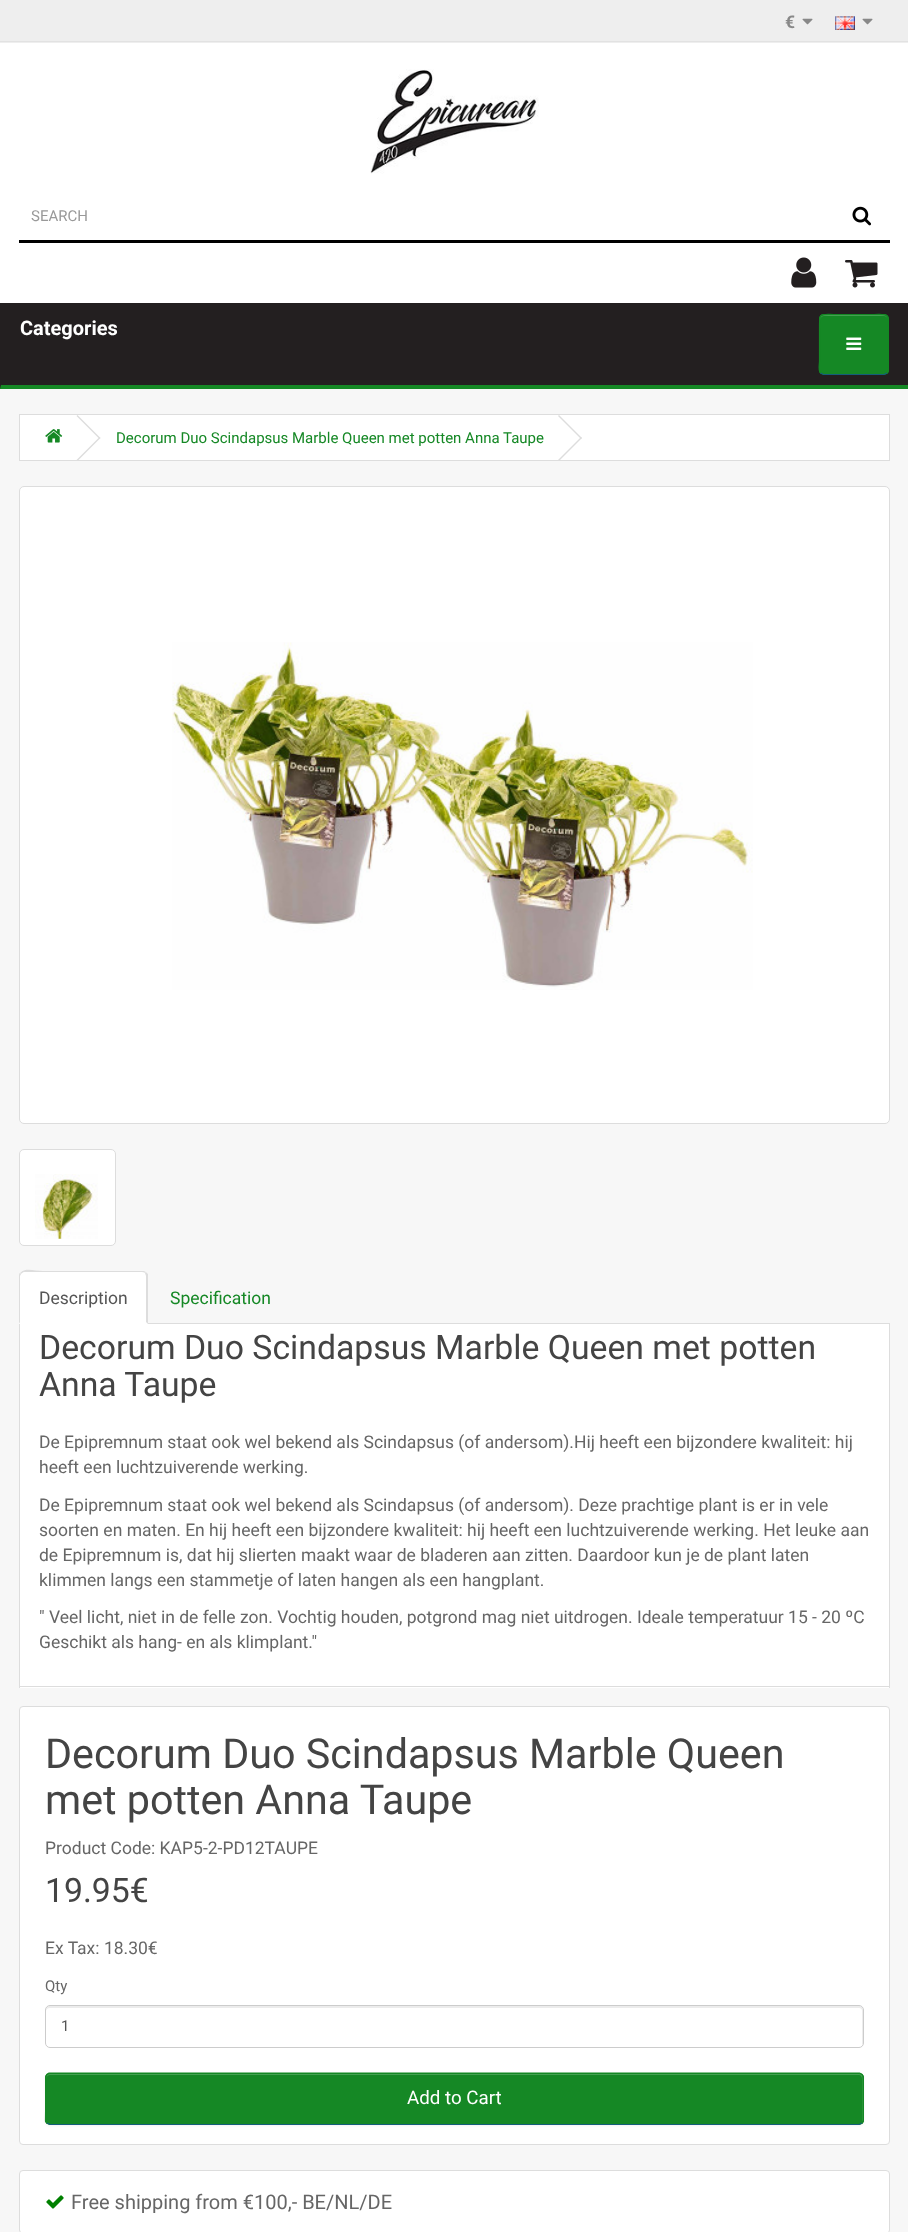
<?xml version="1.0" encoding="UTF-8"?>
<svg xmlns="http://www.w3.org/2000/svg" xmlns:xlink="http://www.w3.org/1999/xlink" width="908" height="2232">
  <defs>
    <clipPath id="clip1"><rect x="819" y="314" width="70" height="61" rx="5" /></clipPath>
    <clipPath id="clip2"><rect x="45" y="2073" width="819" height="52" rx="5" /></clipPath>
  </defs>
  <rect width="100%" height="100%" fill="#f7f7f7" />
  <rect width="908" height="43" fill="#eeeeee" />
  <rect y="41" width="908" height="1" fill="#e2e2e2" />
  <image x="802" y="18" width="11" height="7" xlink:href="image1.png" />
  <image x="835" y="16" width="20" height="14" xlink:href="image2.png" />
  <image x="862" y="18" width="11" height="7" xlink:href="image1.png" />
  <rect y="43" width="908" height="260" fill="#ffffff" />
  <image x="370" y="69" width="169" height="105" xlink:href="image3.png" />
  <rect x="19" y="240" width="871" height="3" fill="#000000" />
  <image x="852" y="206" width="19" height="20" xlink:href="image4.png" />
  <image x="791" y="257" width="26" height="31" xlink:href="image5.png" />
  <image x="845" y="260" width="33" height="28" xlink:href="image6.png" />
  <rect y="303" width="908" height="86" fill="#231f20" />
  <path d="M 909 389 h -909 l 1 -4 h 907 z" fill="#158825" />
  <rect x="819" y="314" width="70" height="61" rx="5" fill="#158825" />
  <g clip-path="url(#clip1)">
    <rect x="819" y="315" width="70" height="59" fill="#158825" />
  </g>
  <path d="M 824 316 h 60 c 2 0 4 2 4 4 c 0 -7 -9 -5 -14 -5 h -40 c -5 0 -14 -2 -14 5 c 0 -2 2 -4 4 -4 z" fill="#44a051" />
  <path d="M 887 373 l -3 1.5 h -60.5 l -3 -1.5" fill="none" stroke="#145e7a" stroke-width="1.2" />
  <path d="M 820.5 373 c -2.5 -2.5 -1 -9.5 -1 -11.5 v -34 c 0 -15 -0.5 -13 14.5 -13 h 40 c 14.5 0 14 -2 14 13 v 34 c 0 2 1.5 9 -1 11.5" fill="none" stroke="#158825" stroke-width="1.2" />
  <image x="846" y="337" width="16" height="13" xlink:href="image7.png" />
  <rect x="19.5" y="414.5" width="870" height="46" fill="#ffffff" stroke="#dddddd" />
  <image x="45" y="429" width="18" height="14" xlink:href="image8.png" />
  <path d="M 76.5 416 l 1 -1 l 23 23 l -1 1 z" fill="#dddddd" />
  <path d="M 76.5 460 l 23 -23 l 1 1 l -23 23 z" fill="#dddddd" />
  <path d="M 558 416 l 1 -1 l 23 23 l -1 1 z" fill="#dddddd" />
  <path d="M 558 460 l 23 -23 l 1 1 l -23 23 z" fill="#dddddd" />
  <rect x="19.5" y="486.5" width="870" height="637" rx="4.5" fill="#ffffff" stroke="#dddddd" />
  <image x="172" y="642" width="581" height="348" xlink:href="image9.png" />
  <rect x="19.5" y="1149.5" width="96" height="96" rx="4.5" fill="#ffffff" stroke="#dddddd" />
  <image x="35" y="1174" width="63" height="65" xlink:href="image10.png" />
  <rect x="148" y="1323" width="742" height="1" fill="#dddddd" />
  <path d="M 24 1271 h 119 c 3 0 5 2 5 5 v 48 h -129 v -48 c 0 -3 2 -5 5 -5 z" fill="#ffffff" />
  <path d="M 24 1272 c -1 0 -2 1 -3 2 l -1 -1 c 5 -6 15 -2 23 -2 h 101 l 2 1 l -1 1 c 0 0 -1 -1 -3 -1 z" fill="#dddddd" />
  <path d="M 146 1272 l 2 2 v 50 l -2 -2 v -46 l -1 -3 z" fill="#dddddd" />
  <path d="M 19 1324 v -48 c 0 -1 0 -3 1 -3 l 1 1 l -1 2 v 46 z" fill="#dddddd" />
  <rect x="20" y="1324" width="869" height="364" fill="#ffffff" />
  <rect x="889" y="1324" width="1" height="364" fill="#dddddd" />
  <rect x="19" y="1686" width="871" height="1" fill="#dddddd" />
  <rect x="19" y="1324" width="1" height="364" fill="#dddddd" />
  <rect x="19.5" y="1706.5" width="870" height="438" rx="3.5" fill="#ffffff" stroke="#dddddd" />
  <path d="M 50 2008 h 809 c 2 0 3 1 3 3 v 34 c 1 -1 1 -2 1 -3 v -32 c 0 -2 -2 -4 -4 -4 h -809 c -2 0 -4 2 -4 4 v 1 c 0 -2 2 -3 4 -3 z" fill="#ececec" />
  <rect x="45.5" y="2005.5" width="818" height="42" rx="4.5" fill="none" stroke="#cccccc" />
  <rect x="45" y="2074" width="819" height="52" rx="5" fill="#000000" fill-opacity="0.05" filter="blur(1px)" />
  <rect x="45" y="2073" width="819" height="52" rx="5" fill="#158825" />
  <g clip-path="url(#clip2)">
    <rect x="45" y="2074" width="819" height="50" fill="#158825" />
  </g>
  <path d="M 50 2075 h 809 c 2 0 3 2 3 4 v 44 c 0 -1 1 -2 1 -3 v -42 c 0 -2 -2 -4 -4 -4 h -809 c -2 0 -4 2 -4 4 v 1 c 0 -2 2 -4 4 -4 z" fill="#44a051" />
  <path d="M 862 2123 l -3 1.5 h -809 l -3 -1.5" fill="none" stroke="#145e7a" stroke-width="1.2" />
  <path d="M 47 2123 l -1.5 -2 l 0.5 -45 c 0.5 -1.5 1.5 -2.5 3 -3 h 810.5 c 1.5 0.5 3 1.5 3.5 3 v 45 l -1 2" fill="none" stroke="#158825" stroke-width="1.2" />
  <rect x="19.5" y="2170.5" width="870" height="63" rx="3.5" fill="#ffffff" stroke="#dddddd" />
  <image x="46" y="2195" width="18" height="14" xlink:href="image11.png" />
  <text x="785" y="28" style="font-family: Roboto; font-size: 17.5px; font-weight: bold; fill: #888888">€</text>
  <text x="31" y="221" style="font-family: Roboto; font-size: 15px; fill: #999999">SEARCH</text>
  <text x="20" y="335" style="font-family: Roboto; font-size: 20px; font-weight: bold; fill: #ffffff">Categories</text>
  <text x="116" y="443" style="font-family: Roboto; font-size: 15px; fill: #158825">Decorum Duo Scindapsus Marble Queen met potten Anna Taupe</text>
  <text x="39" y="1304" style="font-family: Roboto; font-size: 17.5px; fill: #555555">Description</text>
  <text x="170" y="1304" style="font-family: Roboto; font-size: 17.5px; fill: #158825">Specification</text>
  <text x="39" y="1359" style="font-family: Roboto; font-size: 33.75px; fill: #444444">Decorum Duo Scindapsus Marble Queen met potten</text>
  <text x="39" y="1396" style="font-family: Roboto; font-size: 33.75px; fill: #444444">Anna Taupe</text>
  <text x="39" y="1448" style="font-family: Roboto; font-size: 17.5px; fill: #666666">De Epipremnum staat ook wel bekend als Scindapsus (of andersom).Hij heeft een bijzondere kwaliteit: hij</text>
  <text x="39" y="1473" style="font-family: Roboto; font-size: 17.5px; fill: #666666">heeft een luchtzuiverende werking.</text>
  <text x="39" y="1511" style="font-family: Roboto; font-size: 17.5px; fill: #666666">De Epipremnum staat ook wel bekend als Scindapsus (of andersom). Deze prachtige plant is er in vele</text>
  <text x="39" y="1536" style="font-family: Roboto; font-size: 17.5px; fill: #666666">soorten en maten. En hij heeft een bijzondere kwaliteit: hij heeft een luchtzuiverende werking. Het leuke aan</text>
  <text x="39" y="1561" style="font-family: Roboto; font-size: 17.5px; fill: #666666">de Epipremnum is, dat hij slierten maakt waar de bladeren aan zitten. Daardoor kun je de plant laten</text>
  <text x="39" y="1586" style="font-family: Roboto; font-size: 17.5px; fill: #666666">klimmen langs een stammetje of laten hangen als een hangplant.</text>
  <text x="39" y="1623" style="font-family: Roboto; font-size: 17.5px; fill: #666666">" Veel licht, niet in de felle zon. Vochtig houden, potgrond mag niet uitdrogen. Ideale temperatuur 15 - 20 ºC</text>
  <text x="39" y="1648" style="font-family: Roboto; font-size: 17.5px; fill: #666666">Geschikt als hang- en als klimplant."</text>
  <text x="45" y="1768" style="font-family: Roboto; font-size: 41.25px; fill: #444444">Decorum Duo Scindapsus Marble Queen</text>
  <text x="45" y="1814" style="font-family: Roboto; font-size: 41.25px; fill: #444444">met potten Anna Taupe</text>
  <text x="45" y="1854" style="font-family: Roboto; font-size: 17.5px; fill: #666666">Product Code: KAP5-2-PD12TAUPE</text>
  <text x="45" y="1902" style="font-family: Roboto; font-size: 33.75px; fill: #444444">19.95€</text>
  <text x="45" y="1954" style="font-family: Roboto; font-size: 17.5px; fill: #666666">Ex Tax: 18.30€</text>
  <text x="45" y="1991" style="font-family: Roboto; font-size: 15px; fill: #666666">Qty</text>
  <text x="61" y="2031" style="font-family: Roboto; font-size: 15px; fill: #555555">1</text>
  <text x="407" y="2104" style="font-family: Roboto; font-size: 18.75px; fill: #ffffff">Add to Cart</text>
  <text x="71" y="2209" style="font-family: Roboto; font-size: 20px; fill: #666666">Free shipping from €100,- BE/NL/DE</text>
</svg>
